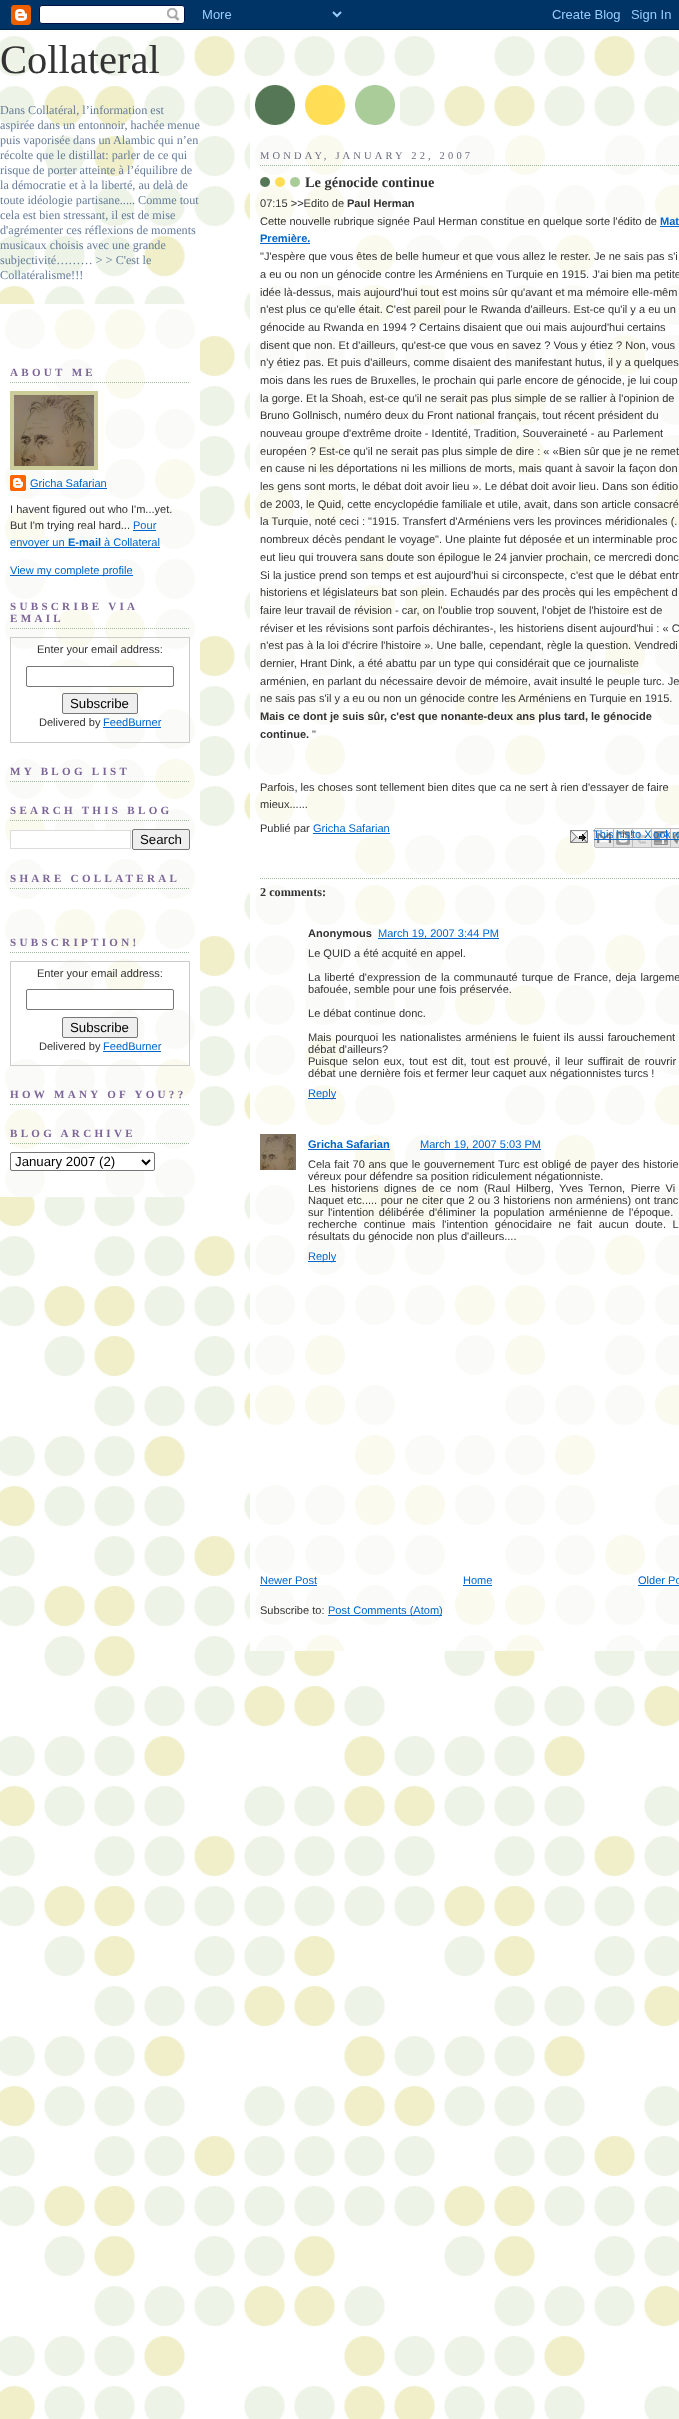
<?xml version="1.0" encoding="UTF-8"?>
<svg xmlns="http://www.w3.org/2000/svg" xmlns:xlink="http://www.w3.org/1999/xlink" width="679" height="2419">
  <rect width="100%" height="100%" fill="#ffffff" />
  <image x="0" y="30" width="679" height="2389" xlink:href="image1.png" />
  <image x="0" y="0" width="679" height="30" xlink:href="image2.png" />
  <image x="250" y="85" width="150" height="41" xlink:href="image3.png" />
  <image x="0" y="304" width="200" height="893" xlink:href="image4.png" />
  <path d="M 10 382.5 h 180" fill="none" stroke="#99bb99" stroke-dasharray="1 1" />
  <rect x="12" y="393" width="84" height="75" fill="none" stroke="#cccc99" stroke-width="4" />
  <image x="14" y="395" width="80" height="71" xlink:href="image5.png" />
  <image x="10" y="475" width="16" height="16" xlink:href="image6.png" />
  <rect x="30" y="488" width="77" height="1" fill="#0066cc" />
  <rect x="133" y="530" width="23" height="1" fill="#0066cc" />
  <rect x="10" y="547" width="150" height="1" fill="#0066cc" />
  <rect x="10" y="575" width="123" height="1" fill="#0066cc" />
  <path d="M 10 628.5 h 180" fill="none" stroke="#99bb99" stroke-dasharray="1 1" />
  <rect x="10.5" y="637.5" width="179" height="105" fill="none" stroke="#cccccc" />
  <rect x="26.5" y="666.5" width="147" height="20" rx="1.5" fill="#ffffff" stroke="#767676" />
  <rect x="62.5" y="693.5" width="75" height="20" rx="1.5" fill="#efefef" stroke="#767676" />
  <rect x="103" y="727" width="58" height="1" fill="#0066cc" />
  <path d="M 10 781.5 h 180" fill="none" stroke="#99bb99" stroke-dasharray="1 1" />
  <path d="M 10 820.5 h 180" fill="none" stroke="#99bb99" stroke-dasharray="1 1" />
  <rect x="10.5" y="830.5" width="120" height="18" fill="#ffffff" stroke="#dddddd" />
  <rect x="132.5" y="829.5" width="57" height="20" rx="1.5" fill="#efefef" stroke="#767676" />
  <path d="M 10 888.5 h 180" fill="none" stroke="#99bb99" stroke-dasharray="1 1" />
  <path d="M 10 952.5 h 180" fill="none" stroke="#99bb99" stroke-dasharray="1 1" />
  <rect x="10.5" y="961.5" width="179" height="104" fill="none" stroke="#cccccc" />
  <rect x="26.5" y="989.5" width="147" height="20" rx="1.5" fill="#ffffff" stroke="#767676" />
  <rect x="62.5" y="1017.5" width="75" height="20" rx="1.5" fill="#efefef" stroke="#767676" />
  <rect x="103" y="1051" width="58" height="1" fill="#0066cc" />
  <path d="M 10 1104.5 h 180" fill="none" stroke="#99bb99" stroke-dasharray="1 1" />
  <path d="M 10 1143.5 h 180" fill="none" stroke="#99bb99" stroke-dasharray="1 1" />
  <rect x="10.5" y="1152.5" width="144" height="18" rx="1.5" fill="#ffffff" stroke="#767676" />
  <path d="M 142 1160 l 4 4 l 4 -4" fill="none" stroke="#000000" stroke-width="2" />
  <image x="250" y="135" width="429" height="1516" xlink:href="image7.png" />
  <path d="M 260 165.5 h 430" fill="none" stroke="#99bb99" stroke-dasharray="1 1" />
  <image x="260" y="177" width="40" height="10" xlink:href="image8.png" />
  <rect x="660" y="226" width="19" height="1" fill="#0066cc" />
  <rect x="260" y="243" width="50" height="1" fill="#0066cc" />
  <rect x="313" y="833" width="77" height="1" fill="#0066cc" />
  <image x="570" y="830" width="18" height="13" xlink:href="image9.png" />
  <image x="594" y="828" width="19" height="20" xlink:href="image10.png" />
  <rect x="594" y="839" width="20" height="1" fill="#0066cc" />
  <path d="M 260 878.5 h 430" fill="none" stroke="#99bb99" stroke-dasharray="1 1" />
  <rect x="378" y="938" width="121" height="1" fill="#0066cc" />
  <rect x="308" y="1098" width="28" height="1" fill="#0066cc" />
  <image x="260" y="1134" width="36" height="36" xlink:href="image15.png" />
  <rect x="308" y="1149" width="82" height="1" fill="#0066cc" />
  <rect x="420" y="1149" width="121" height="1" fill="#0066cc" />
  <rect x="308" y="1261" width="28" height="1" fill="#0066cc" />
  <rect x="260" y="1585" width="57" height="1" fill="#0066cc" />
  <rect x="463" y="1585" width="29" height="1" fill="#0066cc" />
  <rect x="638" y="1585" width="41" height="1" fill="#0066cc" />
  <rect x="328" y="1615" width="114" height="1" fill="#0066cc" />
  <text x="0" y="73" style="font-family: Liberation Serif; font-size: 40.5px; fill: #333333">Collateral</text>
  <text x="0" y="114" style="font-family: Liberation Serif; font-size: 12.2px; fill: #667c99">Dans Collatéral, l’information est</text>
  <text x="0" y="129" style="font-family: Liberation Serif; font-size: 12.2px; fill: #667c99">aspirée dans un entonnoir, hachée menue</text>
  <text x="0" y="144" style="font-family: Liberation Serif; font-size: 12.2px; fill: #667c99">puis vaporisée dans un Alambic qui n’en</text>
  <text x="0" y="159" style="font-family: Liberation Serif; font-size: 12.2px; fill: #667c99">récolte que le distillat: parler de ce qui</text>
  <text x="0" y="174" style="font-family: Liberation Serif; font-size: 12.2px; fill: #667c99">risque de porter atteinte à l’équilibre de</text>
  <text x="0" y="189" style="font-family: Liberation Serif; font-size: 12.2px; fill: #667c99">la démocratie et à la liberté, au delà de</text>
  <text x="0" y="204" style="font-family: Liberation Serif; font-size: 12.2px; fill: #667c99">toute idéologie partisane..... Comme tout</text>
  <text x="0" y="219" style="font-family: Liberation Serif; font-size: 12.2px; fill: #667c99">cela est bien stressant, il est de mise</text>
  <text x="0" y="234" style="font-family: Liberation Serif; font-size: 12.2px; fill: #667c99">d'agrémenter ces réflexions de moments</text>
  <text x="0" y="249" style="font-family: Liberation Serif; font-size: 12.2px; fill: #667c99">musicaux choisis avec une grande</text>
  <text x="0" y="264" style="font-family: Liberation Serif; font-size: 12.2px; fill: #667c99">subjectivité……… &gt; &gt; C'est le</text>
  <text x="0" y="279" style="font-family: Liberation Serif; font-size: 12.2px; fill: #667c99">Collatéralisme!!!</text>
  <text x="10" y="376" style="font-family: Liberation Serif; font-size: 11.05px; font-weight: bold; letter-spacing: 3.3px; fill: #7c6699">ABOUT ME</text>
  <text x="30" y="487" style="font-family: Liberation Sans; font-size: 11.05px; fill: #0066cc">Gricha Safarian</text>
  <text x="10" y="513" style="font-family: Liberation Sans; font-size: 11.05px; fill: #333333">I havent figured out who I'm...yet.</text>
  <text x="10" y="529" style="font-family: Liberation Sans; font-size: 11.05px; fill: #333333">But I'm trying real hard...</text>
  <text x="133" y="529" style="font-family: Liberation Sans; font-size: 11.05px; fill: #0066cc">Pour</text>
  <text x="10" y="546" style="font-family: Liberation Sans; font-size: 11.05px; fill: #0066cc">envoyer un</text>
  <text x="68" y="546" style="font-family: Liberation Sans; font-size: 11.05px; font-weight: bold; fill: #0066cc">E-mail</text>
  <text x="104" y="546" style="font-family: Liberation Sans; font-size: 11.05px; fill: #0066cc">à Collateral</text>
  <text x="10" y="574" style="font-family: Liberation Sans; font-size: 11.05px; fill: #0066cc">View my complete profile</text>
  <text x="10" y="610" style="font-family: Liberation Serif; font-size: 11.05px; font-weight: bold; letter-spacing: 3.3px; fill: #7c6699">SUBSCRIBE VIA</text>
  <text x="10" y="622" style="font-family: Liberation Serif; font-size: 11.05px; font-weight: bold; letter-spacing: 3.3px; fill: #7c6699">EMAIL</text>
  <text x="37" y="653" style="font-family: Liberation Sans; font-size: 11.05px; fill: #333333">Enter your email address:</text>
  <text x="70" y="708" style="font-family: Liberation Sans; font-size: 13.25px; fill: #000000">Subscribe</text>
  <text x="39" y="726" style="font-family: Liberation Sans; font-size: 11.05px; fill: #333333">Delivered by</text>
  <text x="103" y="726" style="font-family: Liberation Sans; font-size: 11.05px; fill: #0066cc">FeedBurner</text>
  <text x="10" y="775" style="font-family: Liberation Serif; font-size: 11.05px; font-weight: bold; letter-spacing: 3.3px; fill: #7c6699">MY BLOG LIST</text>
  <text x="10" y="814" style="font-family: Liberation Serif; font-size: 11.05px; font-weight: bold; letter-spacing: 3.3px; fill: #7c6699">SEARCH THIS BLOG</text>
  <text x="140" y="844" style="font-family: Liberation Sans; font-size: 13.25px; fill: #000000">Search</text>
  <text x="10" y="882" style="font-family: Liberation Serif; font-size: 11.05px; font-weight: bold; letter-spacing: 3.3px; fill: #7c6699">SHARE COLLATERAL</text>
  <text x="10" y="946" style="font-family: Liberation Serif; font-size: 11.05px; font-weight: bold; letter-spacing: 3.3px; fill: #7c6699">SUBSCRIPTION!</text>
  <text x="37" y="977" style="font-family: Liberation Sans; font-size: 11.05px; fill: #333333">Enter your email address:</text>
  <text x="70" y="1032" style="font-family: Liberation Sans; font-size: 13.25px; fill: #000000">Subscribe</text>
  <text x="39" y="1050" style="font-family: Liberation Sans; font-size: 11.05px; fill: #333333">Delivered by</text>
  <text x="103" y="1050" style="font-family: Liberation Sans; font-size: 11.05px; fill: #0066cc">FeedBurner</text>
  <text x="10" y="1098" style="font-family: Liberation Serif; font-size: 11.05px; font-weight: bold; letter-spacing: 3.3px; fill: #7c6699">HOW MANY OF YOU??</text>
  <text x="10" y="1137" style="font-family: Liberation Serif; font-size: 11.05px; font-weight: bold; letter-spacing: 3.3px; fill: #7c6699">BLOG ARCHIVE</text>
  <text x="15" y="1166" style="font-family: Liberation Sans; font-size: 13.25px; fill: #000000">January 2007 (2)</text>
  <text x="260" y="159" style="font-family: Liberation Serif; font-size: 10.5px; letter-spacing: 3.15px; fill: #6b6b80">MONDAY, JANUARY 22, 2007</text>
  <text x="305" y="187" style="font-family: Liberation Serif; font-size: 14.4px; font-weight: bold; fill: #333333">Le génocide continue</text>
  <text x="260" y="207" style="font-family: Liberation Sans; font-size: 11.05px; fill: #333333">07:15 &gt;&gt;Edito de</text>
  <text x="347" y="207" style="font-family: Liberation Sans; font-size: 11.05px; font-weight: bold; fill: #333333">Paul Herman</text>
  <text x="260" y="225" style="font-family: Liberation Sans; font-size: 11.05px; fill: #333333">Cette nouvelle rubrique signée Paul Herman constitue en quelque sorte l'édito de</text>
  <text x="660" y="225" style="font-family: Liberation Sans; font-size: 11.05px; font-weight: bold; fill: #0066cc">Mat</text>
  <text x="260" y="242" style="font-family: Liberation Sans; font-size: 11.05px; font-weight: bold; fill: #0066cc">Première.</text>
  <text x="260" y="260" style="font-family: Liberation Sans; font-size: 11.05px; fill: #333333">"J'espère que vous êtes de belle humeur et que vous allez le rester. Je ne sais pas s'i</text>
  <text x="260" y="278" style="font-family: Liberation Sans; font-size: 11.05px; fill: #333333">a eu ou non un génocide contre les Arméniens en Turquie en 1915. J'ai bien ma petite</text>
  <text x="260" y="296" style="font-family: Liberation Sans; font-size: 11.05px; fill: #333333">idée là-dessus, mais aujourd'hui tout est moins sûr qu'avant et ma mémoire elle-mêm</text>
  <text x="260" y="313" style="font-family: Liberation Sans; font-size: 11.05px; fill: #333333">n'est plus ce qu'elle était. C'est pareil pour le Rwanda d'ailleurs. Est-ce qu'il y a eu un</text>
  <text x="260" y="331" style="font-family: Liberation Sans; font-size: 11.05px; fill: #333333">génocide au Rwanda en 1994 ? Certains disaient que oui mais aujourd'hui certains</text>
  <text x="260" y="349" style="font-family: Liberation Sans; font-size: 11.05px; fill: #333333">disent que non. Et d'ailleurs, qu'est-ce que vous en savez ? Vous y étiez ? Non, vous</text>
  <text x="260" y="366" style="font-family: Liberation Sans; font-size: 11.05px; fill: #333333">n'y étiez pas. Et puis d'ailleurs, comme disaient des manifestant hutus, il y a quelques</text>
  <text x="260" y="384" style="font-family: Liberation Sans; font-size: 11.05px; fill: #333333">mois dans les rues de Bruxelles, le prochain qui parle encore de génocide, je lui coup</text>
  <text x="260" y="402" style="font-family: Liberation Sans; font-size: 11.05px; fill: #333333">la gorge. Et la Shoah, est-ce qu'il ne serait pas plus simple de se rallier à l'opinion de</text>
  <text x="260" y="419" style="font-family: Liberation Sans; font-size: 11.05px; fill: #333333">Bruno Gollnisch, numéro deux du Front national français, tout récent président du</text>
  <text x="260" y="437" style="font-family: Liberation Sans; font-size: 11.05px; fill: #333333">nouveau groupe d'extrême droite - Identité, Tradition, Souveraineté - au Parlement</text>
  <text x="260" y="455" style="font-family: Liberation Sans; font-size: 11.05px; fill: #333333">européen ? Est-ce qu'il ne serait pas plus simple de dire : « «Bien sûr que je ne remet</text>
  <text x="260" y="472" style="font-family: Liberation Sans; font-size: 11.05px; fill: #333333">en cause ni les déportations ni les millions de morts, mais quant à savoir la façon don</text>
  <text x="260" y="490" style="font-family: Liberation Sans; font-size: 11.05px; fill: #333333">les gens sont morts, le débat doit avoir lieu ». Le débat doit avoir lieu. Dans son éditio</text>
  <text x="260" y="508" style="font-family: Liberation Sans; font-size: 11.05px; fill: #333333">de 2003, le Quid, cette encyclopédie familiale et utile, avait, dans son article consacré</text>
  <text x="260" y="525" style="font-family: Liberation Sans; font-size: 11.05px; fill: #333333">la Turquie, noté ceci : "1915. Transfert d'Arméniens vers les provinces méridionales (.</text>
  <text x="260" y="543" style="font-family: Liberation Sans; font-size: 11.05px; fill: #333333">nombreux décès pendant le voyage". Une plainte fut déposée et un interminable proc</text>
  <text x="260" y="561" style="font-family: Liberation Sans; font-size: 11.05px; fill: #333333">eut lieu qui trouvera sans doute son épilogue le 24 janvier prochain, ce mercredi donc</text>
  <text x="260" y="579" style="font-family: Liberation Sans; font-size: 11.05px; fill: #333333">Si la justice prend son temps et est aujourd'hui si circonspecte, c'est que le débat entr</text>
  <text x="260" y="596" style="font-family: Liberation Sans; font-size: 11.05px; fill: #333333">historiens et législateurs bat son plein. Echaudés par des procès qui les empêchent d</text>
  <text x="260" y="614" style="font-family: Liberation Sans; font-size: 11.05px; fill: #333333">faire leur travail de révision - car, on l'oublie trop souvent, l'objet de l'histoire est de</text>
  <text x="260" y="632" style="font-family: Liberation Sans; font-size: 11.05px; fill: #333333">réviser et les révisions sont parfois déchirantes-, les historiens disent aujourd'hui : « C</text>
  <text x="260" y="649" style="font-family: Liberation Sans; font-size: 11.05px; fill: #333333">n'est pas à la loi d'écrire l'histoire ». Une balle, cependant, règle la question. Vendredi</text>
  <text x="260" y="667" style="font-family: Liberation Sans; font-size: 11.05px; fill: #333333">dernier, Hrant Dink, a été abattu par un type qui considérait que ce journaliste</text>
  <text x="260" y="685" style="font-family: Liberation Sans; font-size: 11.05px; fill: #333333">arménien, en parlant du nécessaire devoir de mémoire, avait insulté le peuple turc. Je</text>
  <text x="260" y="702" style="font-family: Liberation Sans; font-size: 11.05px; fill: #333333">ne sais pas s'il y a eu ou non un génocide contre les Arméniens en Turquie en 1915.</text>
  <text x="260" y="720" style="font-family: Liberation Sans; font-size: 11.05px; font-weight: bold; fill: #333333">Mais ce dont je suis sûr, c'est que nonante-deux ans plus tard, le génocide</text>
  <text x="260" y="738" style="font-family: Liberation Sans; font-size: 11.05px; font-weight: bold; fill: #333333">continue.</text>
  <text x="312" y="738" style="font-family: Liberation Sans; font-size: 11.05px; fill: #333333">"</text>
  <text x="260" y="791" style="font-family: Liberation Sans; font-size: 11.05px; fill: #333333">Parfois, les choses sont tellement bien dites que ca ne sert à rien d'essayer de faire</text>
  <text x="260" y="808" style="font-family: Liberation Sans; font-size: 11.05px; fill: #333333">mieux......</text>
  <text x="260" y="832" style="font-family: Liberation Sans; font-size: 11.05px; fill: #333333">Publié par</text>
  <text x="313" y="832" style="font-family: Liberation Sans; font-size: 11.05px; fill: #0066cc">Gricha Safarian</text>
  <text x="593" y="838" style="font-family: Liberation Sans; font-size: 11.05px; fill: #0066cc">This</text>
  <image x="613" y="828" width="19" height="20" xlink:href="image11.png" />
  <text x="616" y="838" style="font-family: Liberation Sans; font-size: 11.05px; fill: #0066cc">his!</text>
  <rect x="613" y="839" width="20" height="1" fill="#0066cc" />
  <image x="632" y="828" width="19" height="20" xlink:href="image12.png" />
  <text x="632" y="838" style="font-family: Liberation Sans; font-size: 11.05px; fill: #0066cc">to X</text>
  <rect x="632" y="839" width="20" height="1" fill="#0066cc" />
  <image x="651" y="828" width="19" height="20" xlink:href="image13.png" />
  <text x="653" y="838" style="font-family: Liberation Sans; font-size: 11.05px; fill: #0066cc">ook</text>
  <rect x="651" y="839" width="20" height="1" fill="#0066cc" />
  <image x="670" y="828" width="9" height="20" xlink:href="image14.png" />
  <text x="672" y="838" style="font-family: Liberation Sans; font-size: 11.05px; fill: #0066cc">re</text>
  <rect x="670" y="839" width="9" height="1" fill="#0066cc" />
  <text x="260" y="896" style="font-family: Liberation Serif; font-size: 12.2px; font-weight: bold; fill: #333333">2 comments:</text>
  <text x="308" y="937" style="font-family: Liberation Sans; font-size: 11.05px; font-weight: bold; fill: #333333">Anonymous</text>
  <text x="378" y="937" style="font-family: Liberation Sans; font-size: 11.05px; fill: #0066cc">March 19, 2007 3:44 PM</text>
  <text x="308" y="957" style="font-family: Liberation Sans; font-size: 11.05px; fill: #333333">Le QUID a été acquité en appel.</text>
  <text x="308" y="981" word-spacing="1.1" style="font-family: Liberation Sans; font-size: 11.05px; fill: #333333">La liberté d'expression de la communauté turque de France, deja largeme</text>
  <text x="308" y="993" style="font-family: Liberation Sans; font-size: 11.05px; fill: #333333">bafouée, semble pour une fois préservée.</text>
  <text x="308" y="1017" style="font-family: Liberation Sans; font-size: 11.05px; fill: #333333">Le débat continue donc.</text>
  <text x="308" y="1041" word-spacing="0.75" style="font-family: Liberation Sans; font-size: 11.05px; fill: #333333">Mais pourquoi les nationalistes arméniens le fuient ils aussi farouchement</text>
  <text x="308" y="1053" style="font-family: Liberation Sans; font-size: 11.05px; fill: #333333">débat d'ailleurs?</text>
  <text x="308" y="1065" word-spacing="1.6" style="font-family: Liberation Sans; font-size: 11.05px; fill: #333333">Puisque selon eux, tout est dit, tout est prouvé, il leur suffirait de rouvrir</text>
  <text x="308" y="1077" style="font-family: Liberation Sans; font-size: 11.05px; fill: #333333">débat une dernière fois et fermer leur caquet aux négationnistes turcs !</text>
  <text x="308" y="1097" style="font-family: Liberation Sans; font-size: 11.05px; fill: #0066cc">Reply</text>
  <text x="308" y="1148" style="font-family: Liberation Sans; font-size: 11.05px; font-weight: bold; fill: #0066cc">Gricha Safarian</text>
  <text x="420" y="1148" style="font-family: Liberation Sans; font-size: 11.05px; fill: #0066cc">March 19, 2007 5:03 PM</text>
  <text x="308" y="1168" word-spacing="0.5" style="font-family: Liberation Sans; font-size: 11.05px; fill: #333333">Cela fait 70 ans que le gouvernement Turc est obligé de payer des historie</text>
  <text x="308" y="1180" style="font-family: Liberation Sans; font-size: 11.05px; fill: #333333">véreux pour défendre sa position ridiculement négationniste.</text>
  <text x="308" y="1192" word-spacing="2.4" style="font-family: Liberation Sans; font-size: 11.05px; fill: #333333">Les historiens dignes de ce nom (Raul Hilberg, Yves Ternon, Pierre Vi</text>
  <text x="308" y="1204" word-spacing="0.4" style="font-family: Liberation Sans; font-size: 11.05px; fill: #333333">Naquet etc..... pour ne citer que 2 ou 3 historiens</text>
  <text x="554" y="1204" word-spacing="0.5" style="font-family: Liberation Sans; font-size: 11.05px; fill: #333333">non arméniens) ont tranc</text>
  <text x="308" y="1216" word-spacing="1.5" style="font-family: Liberation Sans; font-size: 11.05px; fill: #333333">sur l'intention délibérée d'éliminer la population arménienne de l'époque.</text>
  <text x="308" y="1228" word-spacing="3.5" style="font-family: Liberation Sans; font-size: 11.05px; fill: #333333">recherche continue mais l'intention génocidaire ne fait aucun doute. L</text>
  <text x="308" y="1240" style="font-family: Liberation Sans; font-size: 11.05px; fill: #333333">résultats du génocide non plus d'ailleurs....</text>
  <text x="308" y="1260" style="font-family: Liberation Sans; font-size: 11.05px; fill: #0066cc">Reply</text>
  <text x="260" y="1584" style="font-family: Liberation Sans; font-size: 11.05px; fill: #0066cc">Newer Post</text>
  <text x="463" y="1584" style="font-family: Liberation Sans; font-size: 11.05px; fill: #0066cc">Home</text>
  <text x="638" y="1584" style="font-family: Liberation Sans; font-size: 11.05px; fill: #0066cc">Older Po</text>
  <text x="260" y="1614" style="font-family: Liberation Sans; font-size: 11.05px; fill: #333333">Subscribe to:</text>
  <text x="328" y="1614" style="font-family: Liberation Sans; font-size: 11.05px; fill: #0066cc">Post Comments (Atom)</text>
</svg>
